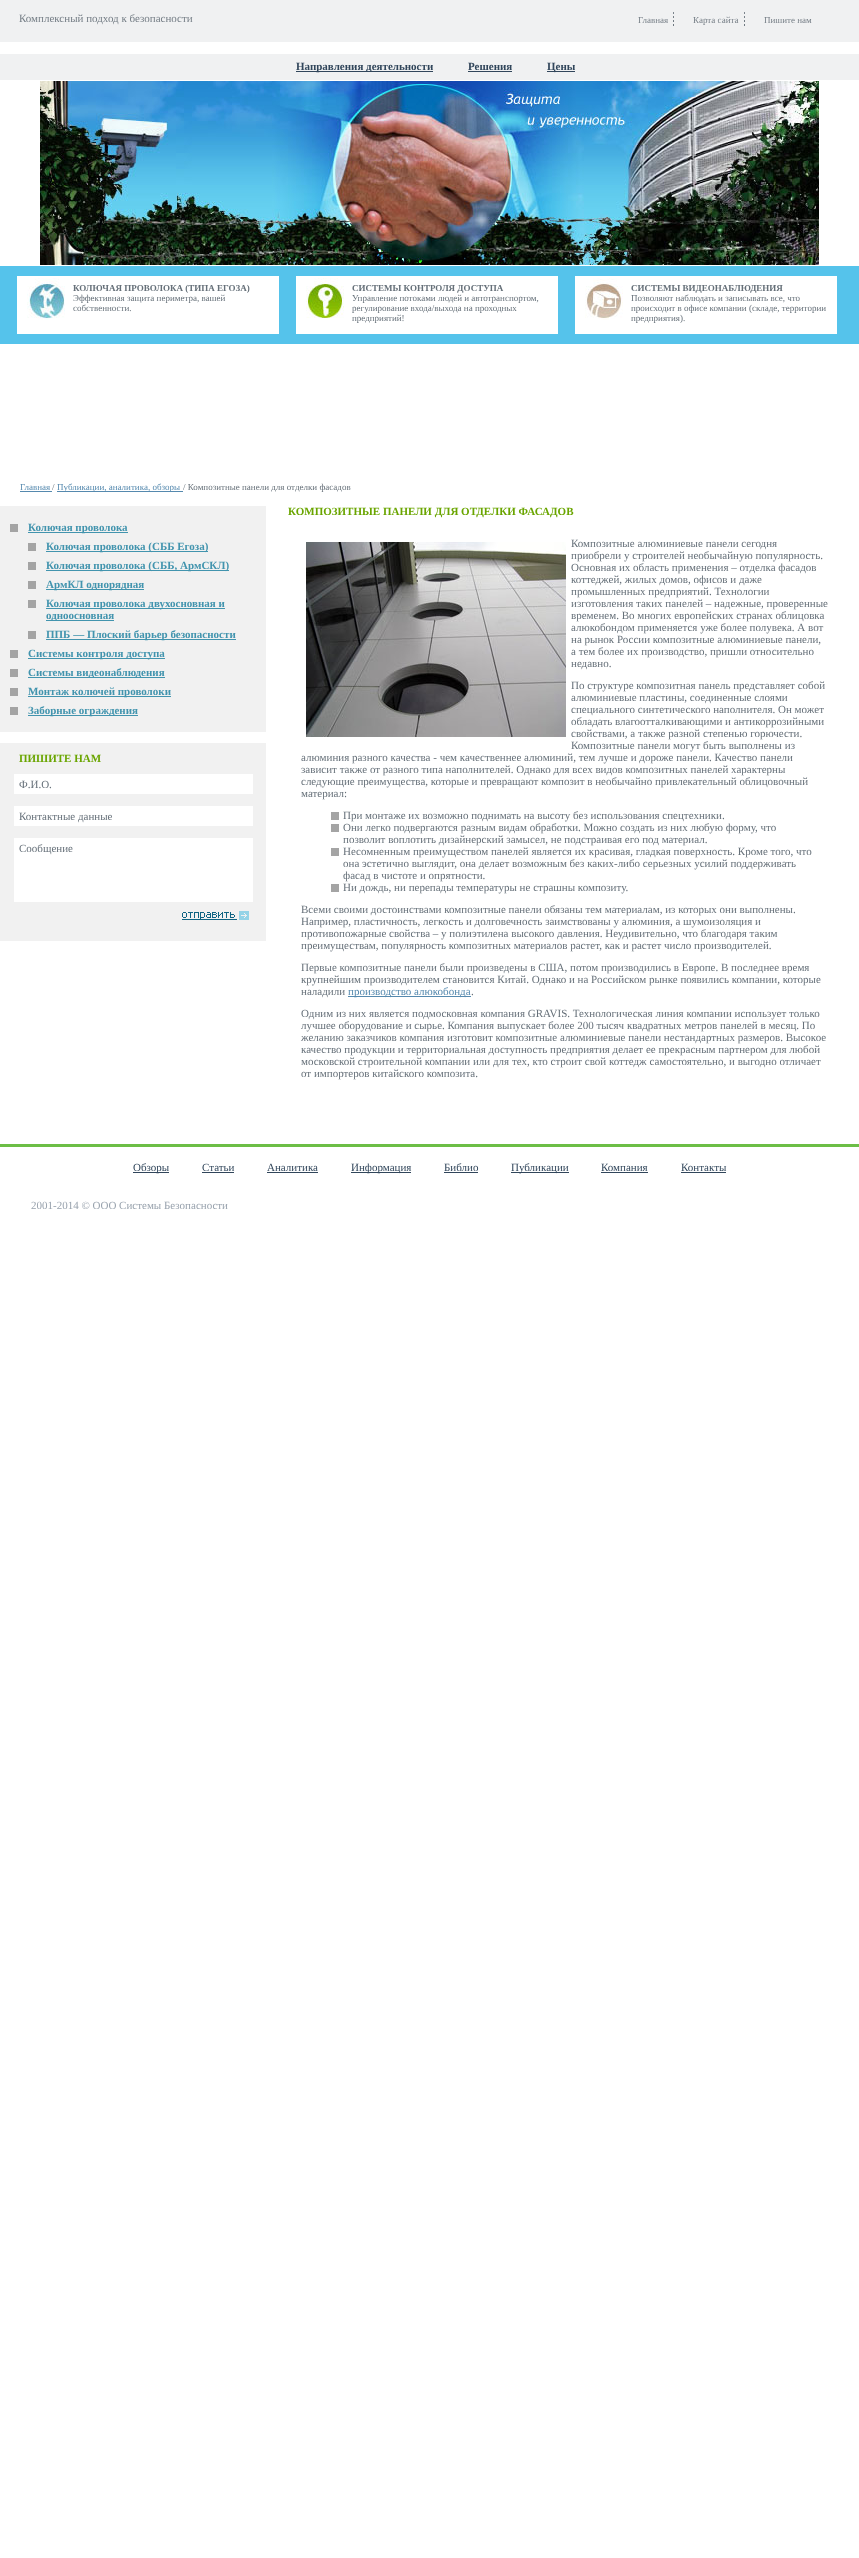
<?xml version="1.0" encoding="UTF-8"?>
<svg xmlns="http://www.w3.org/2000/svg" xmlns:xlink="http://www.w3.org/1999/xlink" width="859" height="2558">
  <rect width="100%" height="100%" fill="#ffffff" />
  <rect width="859" height="42" fill="#f0f1f2" />
  <image x="673" y="12" width="1" height="14" xlink:href="image1.png" />
  <image x="744" y="12" width="1" height="14" xlink:href="image1.png" />
  <rect y="54" width="859" height="26" fill="#f0f1f2" />
  <rect x="296" y="71" width="137" height="1" fill="#31465b" />
  <rect x="468" y="71" width="44" height="1" fill="#31465b" />
  <rect x="547" y="71" width="28" height="1" fill="#31465b" />
  <image x="40" y="81" width="779" height="184" xlink:href="image2.png" />
  <rect y="266" width="859" height="78" fill="#55c3eb" />
  <rect x="17" y="276" width="262" height="58" fill="#ffffff" />
  <image x="27" y="278" width="38" height="42" xlink:href="image3.png" />
  <rect x="296" y="276" width="262" height="58" fill="#ffffff" />
  <image x="306" y="278" width="38" height="40" xlink:href="image4.png" />
  <rect x="575" y="276" width="262" height="58" fill="#ffffff" />
  <image x="585" y="278" width="38" height="42" xlink:href="image5.png" />
  <rect x="20" y="491" width="32" height="1" fill="#5589ae" />
  <rect x="57" y="491" width="126" height="1" fill="#5589ae" />
  <rect y="506" width="266" height="226" fill="#f1f1f1" />
  <rect x="10" y="524" width="8" height="8" fill="#a4a4a4" />
  <rect x="28" y="532" width="100" height="1" fill="#4294ae" />
  <rect x="28" y="543" width="8" height="8" fill="#a4a4a4" />
  <rect x="46" y="551" width="162" height="1" fill="#4294ae" />
  <rect x="28" y="562" width="8" height="8" fill="#a4a4a4" />
  <rect x="46" y="570" width="183" height="1" fill="#4294ae" />
  <rect x="28" y="581" width="8" height="8" fill="#a4a4a4" />
  <rect x="46" y="589" width="98" height="1" fill="#4294ae" />
  <rect x="28" y="600" width="8" height="8" fill="#a4a4a4" />
  <rect x="46" y="608" width="179" height="1" fill="#4294ae" />
  <rect x="46" y="620" width="68" height="1" fill="#4294ae" />
  <rect x="28" y="631" width="8" height="8" fill="#a4a4a4" />
  <rect x="46" y="639" width="190" height="1" fill="#4294ae" />
  <rect x="10" y="650" width="8" height="8" fill="#a4a4a4" />
  <rect x="28" y="658" width="137" height="1" fill="#4294ae" />
  <rect x="10" y="669" width="8" height="8" fill="#a4a4a4" />
  <rect x="28" y="677" width="137" height="1" fill="#4294ae" />
  <rect x="10" y="688" width="8" height="8" fill="#a4a4a4" />
  <rect x="28" y="696" width="143" height="1" fill="#4294ae" />
  <rect x="10" y="707" width="8" height="8" fill="#a4a4a4" />
  <rect x="28" y="715" width="110" height="1" fill="#4294ae" />
  <rect y="743" width="266" height="198" fill="#f1f1f1" />
  <rect x="14" y="774" width="239" height="20" fill="#ffffff" />
  <rect x="14" y="806" width="239" height="20" fill="#ffffff" />
  <rect x="14" y="838" width="239" height="64" fill="#ffffff" />
  <image x="182" y="911" width="67" height="9" xlink:href="image6.png" />
  <image x="306" y="542" width="260" height="195" xlink:href="image7.png" />
  <rect x="331" y="812" width="8" height="8" fill="#a4a4a4" />
  <rect x="331" y="824" width="8" height="8" fill="#a4a4a4" />
  <rect x="331" y="848" width="8" height="8" fill="#a4a4a4" />
  <rect x="331" y="884" width="8" height="8" fill="#a4a4a4" />
  <rect x="348" y="996" width="123" height="1" fill="#5589ae" />
  <rect y="1144" width="859" height="3" fill="#6cbe46" />
  <rect x="133" y="1172" width="36" height="1" fill="#31465b" />
  <rect x="202" y="1172" width="32" height="1" fill="#31465b" />
  <rect x="267" y="1172" width="51" height="1" fill="#31465b" />
  <rect x="351" y="1172" width="60" height="1" fill="#31465b" />
  <rect x="444" y="1172" width="34" height="1" fill="#31465b" />
  <rect x="511" y="1172" width="58" height="1" fill="#31465b" />
  <rect x="601" y="1172" width="47" height="1" fill="#31465b" />
  <rect x="681" y="1172" width="45" height="1" fill="#31465b" />
  <text x="19" y="22" style="font-family: Liberation Serif; font-size: 11px; fill: #757e86">Комплексный подход к безопасности</text>
  <text x="638" y="23" style="font-family: Liberation Serif; font-size: 9px; fill: #757e86">Главная</text>
  <text x="693" y="23" style="font-family: Liberation Serif; font-size: 9px; fill: #757e86">Карта сайта</text>
  <text x="764" y="23" style="font-family: Liberation Serif; font-size: 9px; fill: #757e86">Пишите нам</text>
  <text x="296" y="70" style="font-family: Liberation Serif; font-size: 11px; font-weight: bold; fill: #31465b">Направления деятельности</text>
  <text x="468" y="70" style="font-family: Liberation Serif; font-size: 11px; font-weight: bold; fill: #31465b">Решения</text>
  <text x="547" y="70" style="font-family: Liberation Serif; font-size: 11px; font-weight: bold; fill: #31465b">Цены</text>
  <text x="73" y="291" style="font-family: Liberation Serif; font-size: 9px; font-weight: bold; fill: #667079">КОЛЮЧАЯ ПРОВОЛОКА (ТИПА ЕГОЗА)</text>
  <text x="73" y="301" style="font-family: Liberation Serif; font-size: 9px; fill: #667079">Эффективная защита периметра, вашей</text>
  <text x="73" y="311" style="font-family: Liberation Serif; font-size: 9px; fill: #667079">собственности.</text>
  <text x="352" y="291" style="font-family: Liberation Serif; font-size: 9px; font-weight: bold; fill: #667079">СИСТЕМЫ КОНТРОЛЯ ДОСТУПА</text>
  <text x="352" y="301" style="font-family: Liberation Serif; font-size: 9px; fill: #667079">Управление потоками людей и автотранспортом,</text>
  <text x="352" y="311" style="font-family: Liberation Serif; font-size: 9px; fill: #667079">регулирование входа/выхода на проходных</text>
  <text x="352" y="321" style="font-family: Liberation Serif; font-size: 9px; fill: #667079">предприятий!</text>
  <text x="631" y="291" style="font-family: Liberation Serif; font-size: 9px; font-weight: bold; fill: #667079">СИСТЕМЫ ВИДЕОНАБЛЮДЕНИЯ</text>
  <text x="631" y="301" style="font-family: Liberation Serif; font-size: 9px; fill: #667079">Позволяют наблюдать и записывать все, что</text>
  <text x="631" y="311" style="font-family: Liberation Serif; font-size: 9px; fill: #667079">происходит в офисе компании (складе, территории</text>
  <text x="631" y="321" style="font-family: Liberation Serif; font-size: 9px; fill: #667079">предприятия).</text>
  <text x="20" y="490" style="font-family: Liberation Serif; font-size: 9px; fill: #5589ae">Главная</text>
  <text x="52" y="490" style="font-family: Liberation Serif; font-size: 9px; fill: #667079">/</text>
  <text x="57" y="490" style="font-family: Liberation Serif; font-size: 9px; fill: #5589ae">Публикации, аналитика, обзоры</text>
  <text x="183" y="490" style="font-family: Liberation Serif; font-size: 9px; fill: #667079">/ Композитные панели для отделки фасадов</text>
  <text x="28" y="531" style="font-family: Liberation Serif; font-size: 11px; font-weight: bold; fill: #4294ae">Колючая проволока</text>
  <text x="46" y="550" style="font-family: Liberation Serif; font-size: 11px; font-weight: bold; fill: #4294ae">Колючая проволока (СББ Егоза)</text>
  <text x="46" y="569" style="font-family: Liberation Serif; font-size: 11px; font-weight: bold; fill: #4294ae">Колючая проволока (СББ, АрмСКЛ)</text>
  <text x="46" y="588" style="font-family: Liberation Serif; font-size: 11px; font-weight: bold; fill: #4294ae">АрмКЛ однорядная</text>
  <text x="46" y="607" style="font-family: Liberation Serif; font-size: 11px; font-weight: bold; fill: #4294ae">Колючая проволока двухосновная и</text>
  <text x="46" y="619" style="font-family: Liberation Serif; font-size: 11px; font-weight: bold; fill: #4294ae">одноосновная</text>
  <text x="46" y="638" style="font-family: Liberation Serif; font-size: 11px; font-weight: bold; fill: #4294ae">ППБ — Плоский барьер безопасности</text>
  <text x="28" y="657" style="font-family: Liberation Serif; font-size: 11px; font-weight: bold; fill: #4294ae">Системы контроля доступа</text>
  <text x="28" y="676" style="font-family: Liberation Serif; font-size: 11px; font-weight: bold; fill: #4294ae">Системы видеонаблюдения</text>
  <text x="28" y="695" style="font-family: Liberation Serif; font-size: 11px; font-weight: bold; fill: #4294ae">Монтаж колючей проволоки</text>
  <text x="28" y="714" style="font-family: Liberation Serif; font-size: 11px; font-weight: bold; fill: #4294ae">Заборные ограждения</text>
  <text x="19" y="762" style="font-family: Liberation Serif; font-size: 11px; font-weight: bold; fill: #6aa500">ПИШИТЕ НАМ</text>
  <text x="19" y="788" style="font-family: Liberation Serif; font-size: 11px; fill: #667079">Ф.И.О.</text>
  <text x="19" y="820" style="font-family: Liberation Serif; font-size: 11px; fill: #667079">Контактные данные</text>
  <text x="19" y="852" style="font-family: Liberation Serif; font-size: 11px; fill: #667079">Сообщение</text>
  <text x="288" y="515" style="font-family: Liberation Serif; font-size: 11px; font-weight: bold; fill: #6aa500">КОМПОЗИТНЫЕ ПАНЕЛИ ДЛЯ ОТДЕЛКИ ФАСАДОВ</text>
  <text x="571" y="547" style="font-family: Liberation Serif; font-size: 11px; fill: #667079">Композитные алюминиевые панели сегодня</text>
  <text x="571" y="559" style="font-family: Liberation Serif; font-size: 11px; fill: #667079">приобрели у строителей необычайную популярность.</text>
  <text x="571" y="571" style="font-family: Liberation Serif; font-size: 11px; fill: #667079">Основная их область применения – отделка фасадов</text>
  <text x="571" y="583" style="font-family: Liberation Serif; font-size: 11px; fill: #667079">коттеджей, жилых домов, офисов и даже</text>
  <text x="571" y="595" style="font-family: Liberation Serif; font-size: 11px; fill: #667079">промышленных предприятий. Технологии</text>
  <text x="571" y="607" style="font-family: Liberation Serif; font-size: 11px; fill: #667079">изготовления таких панелей – надежные, проверенные</text>
  <text x="571" y="619" style="font-family: Liberation Serif; font-size: 11px; fill: #667079">временем. Во многих европейских странах облицовка</text>
  <text x="571" y="631" style="font-family: Liberation Serif; font-size: 11px; fill: #667079">алюкобондом применяется уже более полувека. А вот</text>
  <text x="571" y="643" style="font-family: Liberation Serif; font-size: 11px; fill: #667079">на рынок России композитные алюминиевые панели,</text>
  <text x="571" y="655" style="font-family: Liberation Serif; font-size: 11px; fill: #667079">а тем более их производство, пришли относительно</text>
  <text x="571" y="667" style="font-family: Liberation Serif; font-size: 11px; fill: #667079">недавно.</text>
  <text x="571" y="689" style="font-family: Liberation Serif; font-size: 11px; fill: #667079">По структуре композитная панель представляет собой</text>
  <text x="571" y="701" style="font-family: Liberation Serif; font-size: 11px; fill: #667079">алюминиевые пластины, соединенные слоями</text>
  <text x="571" y="713" style="font-family: Liberation Serif; font-size: 11px; fill: #667079">специального синтетического наполнителя. Он может</text>
  <text x="571" y="725" style="font-family: Liberation Serif; font-size: 11px; fill: #667079">обладать влагоотталкивающими и антикоррозийными</text>
  <text x="571" y="737" style="font-family: Liberation Serif; font-size: 11px; fill: #667079">свойствами, а также разной степенью горючести.</text>
  <text x="571" y="749" style="font-family: Liberation Serif; font-size: 11px; fill: #667079">Композитные панели могут быть выполнены из</text>
  <text x="301" y="761" style="font-family: Liberation Serif; font-size: 11px; fill: #667079">алюминия разного качества - чем качественнее алюминий, тем лучше и дороже панели. Качество панели</text>
  <text x="301" y="773" style="font-family: Liberation Serif; font-size: 11px; fill: #667079">зависит также от разного типа наполнителей. Однако для всех видов композитных панелей характерны</text>
  <text x="301" y="785" style="font-family: Liberation Serif; font-size: 11px; fill: #667079">следующие преимущества, которые и превращают композит в необычайно привлекательный облицовочный</text>
  <text x="301" y="797" style="font-family: Liberation Serif; font-size: 11px; fill: #667079">материал:</text>
  <text x="343" y="819" style="font-family: Liberation Serif; font-size: 11px; fill: #667079">При монтаже их возможно поднимать на высоту без использования спецтехники.</text>
  <text x="343" y="831" style="font-family: Liberation Serif; font-size: 11px; fill: #667079">Они легко подвергаются разным видам обработки. Можно создать из них любую форму, что</text>
  <text x="343" y="843" style="font-family: Liberation Serif; font-size: 11px; fill: #667079">позволит воплотить дизайнерский замысел, не подстраивая его под материал.</text>
  <text x="343" y="855" style="font-family: Liberation Serif; font-size: 11px; fill: #667079">Несомненным преимуществом панелей является их красивая, гладкая поверхность. Кроме того, что</text>
  <text x="343" y="867" style="font-family: Liberation Serif; font-size: 11px; fill: #667079">она эстетично выглядит, она делает возможным без каких-либо серьезных усилий поддерживать</text>
  <text x="343" y="879" style="font-family: Liberation Serif; font-size: 11px; fill: #667079">фасад в чистоте и опрятности.</text>
  <text x="343" y="891" style="font-family: Liberation Serif; font-size: 11px; fill: #667079">Ни дождь, ни перепады температуры не страшны композиту.</text>
  <text x="301" y="913" style="font-family: Liberation Serif; font-size: 11px; fill: #667079">Всеми своими достоинствами композитные панели обязаны тем материалам, из которых они выполнены.</text>
  <text x="301" y="925" style="font-family: Liberation Serif; font-size: 11px; fill: #667079">Например, пластичность, легкость и долговечность заимствованы у алюминия, а шумоизоляция и</text>
  <text x="301" y="937" style="font-family: Liberation Serif; font-size: 11px; fill: #667079">противопожарные свойства – у полиэтилена высокого давления. Неудивительно, что благодаря таким</text>
  <text x="301" y="949" style="font-family: Liberation Serif; font-size: 11px; fill: #667079">преимуществам, популярность композитных материалов растет, как и растет число производителей.</text>
  <text x="301" y="971" style="font-family: Liberation Serif; font-size: 11px; fill: #667079">Первые композитные панели были произведены в США, потом производились в Европе. В последнее время</text>
  <text x="301" y="983" style="font-family: Liberation Serif; font-size: 11px; fill: #667079">крупнейшим производителем становится Китай. Однако и на Российском рынке появились компании, которые</text>
  <text x="301" y="995" style="font-family: Liberation Serif; font-size: 11px; fill: #667079">наладили</text>
  <text x="348" y="995" style="font-family: Liberation Serif; font-size: 11px; fill: #5589ae">производство алюкобонда</text>
  <text x="471" y="995" style="font-family: Liberation Serif; font-size: 11px; fill: #667079">.</text>
  <text x="301" y="1017" style="font-family: Liberation Serif; font-size: 11px; fill: #667079">Одним из них является подмосковная компания GRAVIS. Технологическая линия компании использует только</text>
  <text x="301" y="1029" style="font-family: Liberation Serif; font-size: 11px; fill: #667079">лучшее оборудование и сырье. Компания выпускает более 200 тысяч квадратных метров панелей в месяц. По</text>
  <text x="301" y="1041" style="font-family: Liberation Serif; font-size: 11px; fill: #667079">желанию заказчиков компания изготовит композитные алюминиевые панели нестандартных размеров. Высокое</text>
  <text x="301" y="1053" style="font-family: Liberation Serif; font-size: 11px; fill: #667079">качество продукции и территориальная доступность предприятия делает ее прекрасным партнером для любой</text>
  <text x="301" y="1065" style="font-family: Liberation Serif; font-size: 11px; fill: #667079">московской строительной компании или для тех, кто строит свой коттедж самостоятельно, и выгодно отличает</text>
  <text x="301" y="1077" style="font-family: Liberation Serif; font-size: 11px; fill: #667079">от импортеров китайского композита.</text>
  <text x="133" y="1171" style="font-family: Liberation Serif; font-size: 11px; fill: #31465b">Обзоры</text>
  <text x="202" y="1171" style="font-family: Liberation Serif; font-size: 11px; fill: #31465b">Статьи</text>
  <text x="267" y="1171" style="font-family: Liberation Serif; font-size: 11px; fill: #31465b">Аналитика</text>
  <text x="351" y="1171" style="font-family: Liberation Serif; font-size: 11px; fill: #31465b">Информация</text>
  <text x="444" y="1171" style="font-family: Liberation Serif; font-size: 11px; fill: #31465b">Библио</text>
  <text x="511" y="1171" style="font-family: Liberation Serif; font-size: 11px; fill: #31465b">Публикации</text>
  <text x="601" y="1171" style="font-family: Liberation Serif; font-size: 11px; fill: #31465b">Компания</text>
  <text x="681" y="1171" style="font-family: Liberation Serif; font-size: 11px; fill: #31465b">Контакты</text>
  <text x="31" y="1209" style="font-family: Liberation Serif; font-size: 11px; fill: #98a2ad">2001-2014 © ООО Системы Безопасности</text>
</svg>
